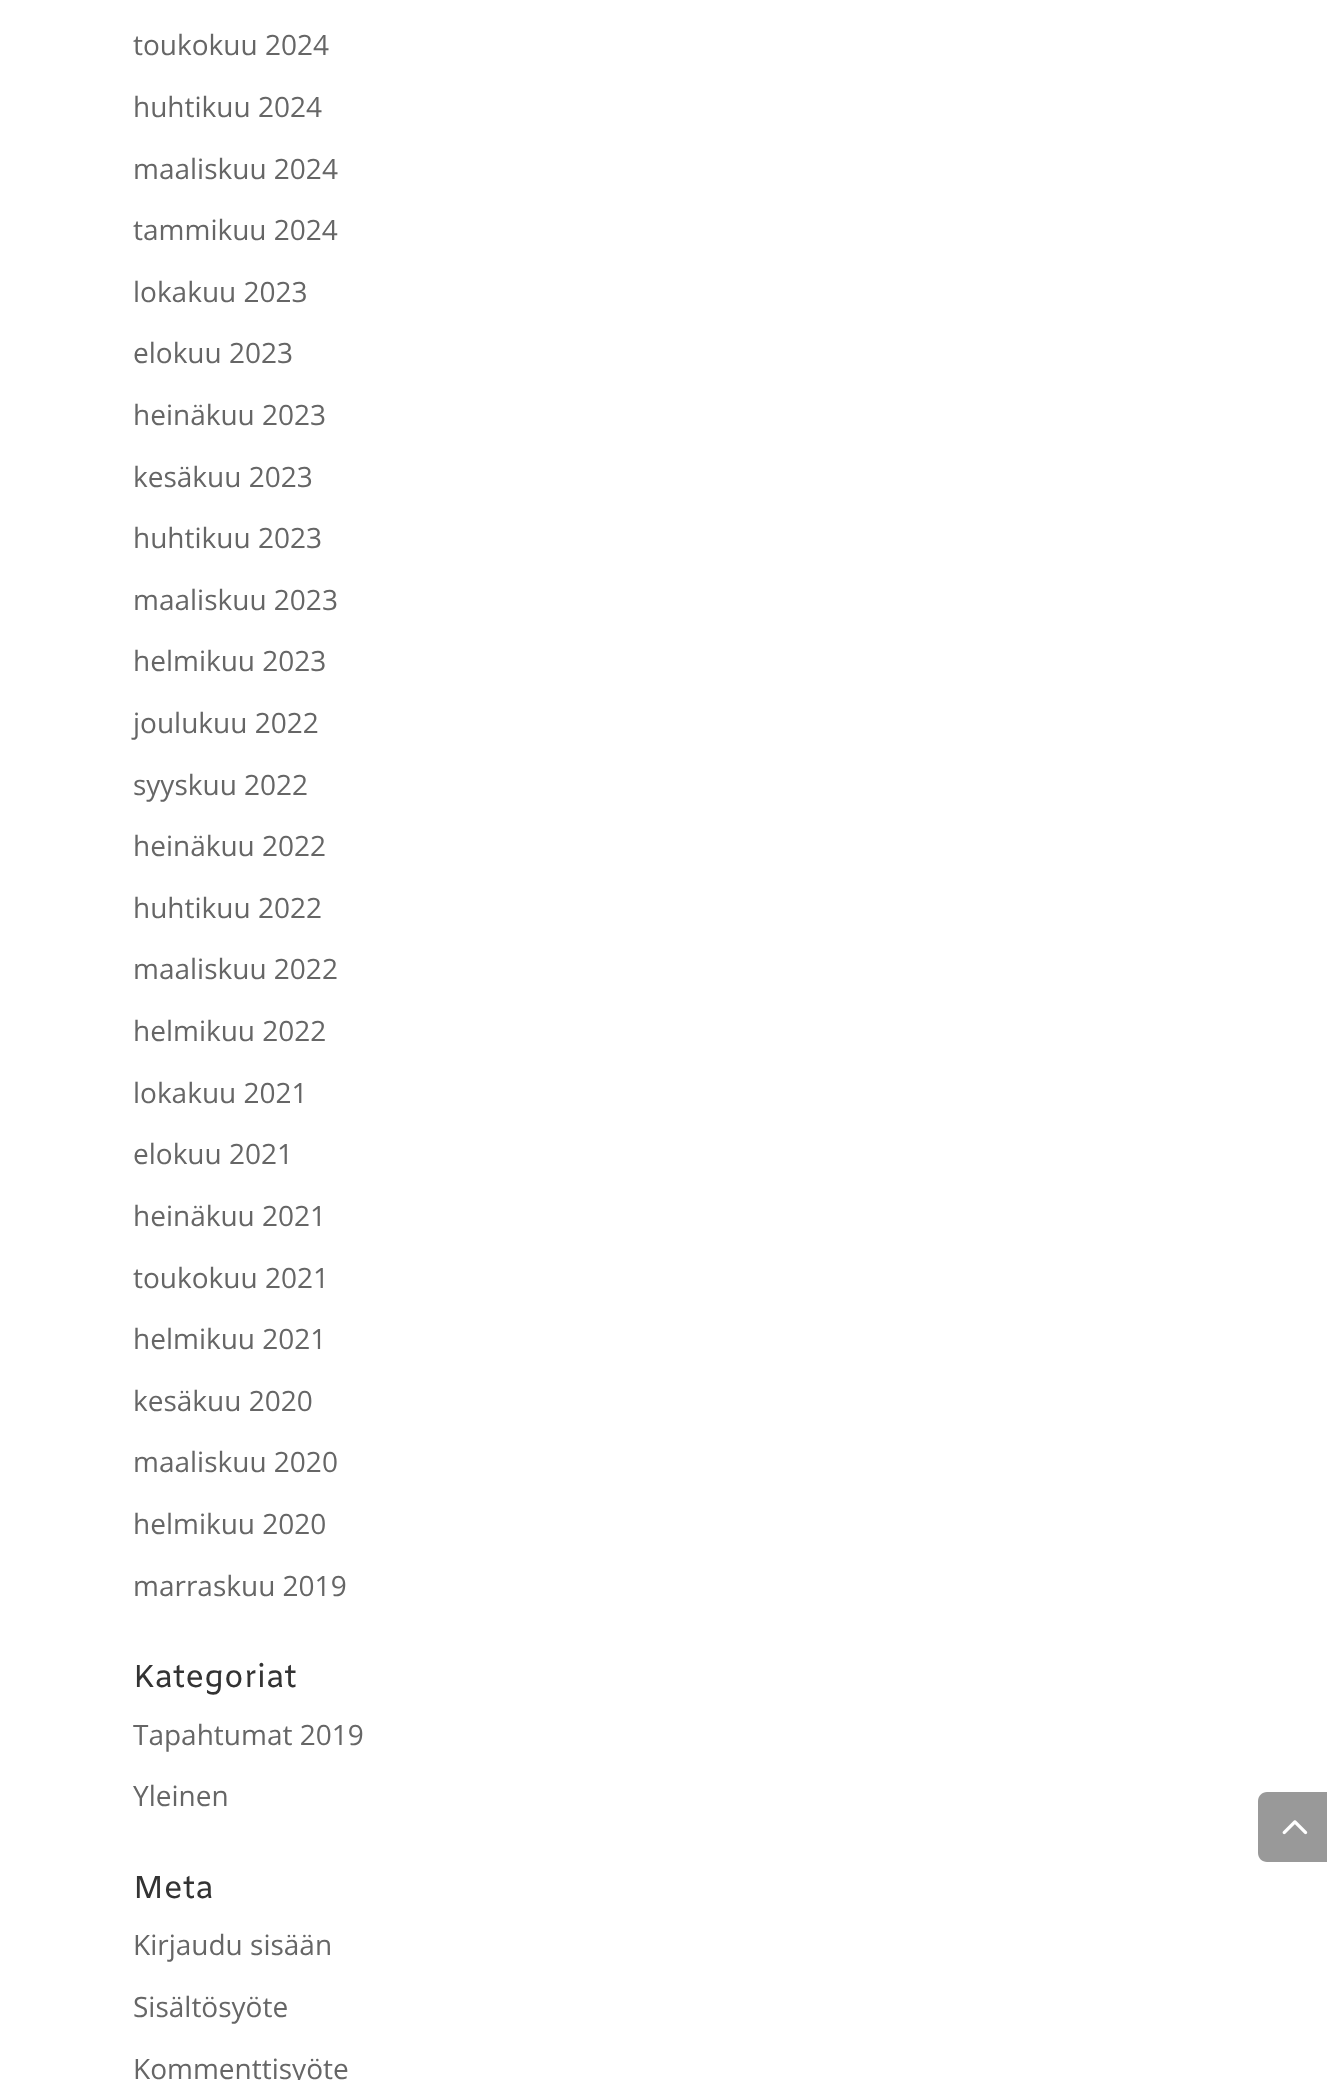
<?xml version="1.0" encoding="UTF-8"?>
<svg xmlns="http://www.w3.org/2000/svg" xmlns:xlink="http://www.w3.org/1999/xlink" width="1327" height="2080">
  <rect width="100%" height="100%" fill="#ffffff" />
  <path d="M 1267 1792 h 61 v 70 h -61 c -5 0 -9 -4 -9 -9 v -52 c 0 -5 4 -9 9 -9 z" fill="#999999" />
  <image x="1282" y="1820" width="26" height="15" xlink:href="image1.png" />
  <text x="133" y="55" style="font-family: Open Sans; font-size: 28px; fill: #666666">toukokuu 2024</text>
  <text x="133" y="117" style="font-family: Open Sans; font-size: 28px; fill: #666666">huhtikuu 2024</text>
  <text x="133" y="179" style="font-family: Open Sans; font-size: 28px; fill: #666666">maaliskuu 2024</text>
  <text x="133" y="240" style="font-family: Open Sans; font-size: 28px; fill: #666666">tammikuu 2024</text>
  <text x="133" y="302" style="font-family: Open Sans; font-size: 28px; fill: #666666">lokakuu 2023</text>
  <text x="133" y="363" style="font-family: Open Sans; font-size: 28px; fill: #666666">elokuu 2023</text>
  <text x="133" y="425" style="font-family: Open Sans; font-size: 28px; fill: #666666">heinäkuu 2023</text>
  <text x="133" y="487" style="font-family: Open Sans; font-size: 28px; fill: #666666">kesäkuu 2023</text>
  <text x="133" y="548" style="font-family: Open Sans; font-size: 28px; fill: #666666">huhtikuu 2023</text>
  <text x="133" y="610" style="font-family: Open Sans; font-size: 28px; fill: #666666">maaliskuu 2023</text>
  <text x="133" y="671" style="font-family: Open Sans; font-size: 28px; fill: #666666">helmikuu 2023</text>
  <text x="133" y="733" style="font-family: Open Sans; font-size: 28px; fill: #666666">joulukuu 2022</text>
  <text x="133" y="795" style="font-family: Open Sans; font-size: 28px; fill: #666666">syyskuu 2022</text>
  <text x="133" y="856" style="font-family: Open Sans; font-size: 28px; fill: #666666">heinäkuu 2022</text>
  <text x="133" y="918" style="font-family: Open Sans; font-size: 28px; fill: #666666">huhtikuu 2022</text>
  <text x="133" y="979" style="font-family: Open Sans; font-size: 28px; fill: #666666">maaliskuu 2022</text>
  <text x="133" y="1041" style="font-family: Open Sans; font-size: 28px; fill: #666666">helmikuu 2022</text>
  <text x="133" y="1103" style="font-family: Open Sans; font-size: 28px; fill: #666666">lokakuu 2021</text>
  <text x="133" y="1164" style="font-family: Open Sans; font-size: 28px; fill: #666666">elokuu 2021</text>
  <text x="133" y="1226" style="font-family: Open Sans; font-size: 28px; fill: #666666">heinäkuu 2021</text>
  <text x="133" y="1288" style="font-family: Open Sans; font-size: 28px; fill: #666666">toukokuu 2021</text>
  <text x="133" y="1349" style="font-family: Open Sans; font-size: 28px; fill: #666666">helmikuu 2021</text>
  <text x="133" y="1411" style="font-family: Open Sans; font-size: 28px; fill: #666666">kesäkuu 2020</text>
  <text x="133" y="1472" style="font-family: Open Sans; font-size: 28px; fill: #666666">maaliskuu 2020</text>
  <text x="133" y="1534" style="font-family: Open Sans; font-size: 28px; fill: #666666">helmikuu 2020</text>
  <text x="133" y="1596" style="font-family: Open Sans; font-size: 28px; fill: #666666">marraskuu 2019</text>
  <text x="133" y="1687" style="font-family: Amiko; font-size: 31.5px; fill: #333333">Kategoriat</text>
  <text x="133" y="1745" style="font-family: Open Sans; font-size: 28px; fill: #666666">Tapahtumat 2019</text>
  <text x="133" y="1806" style="font-family: Open Sans; font-size: 28px; fill: #666666">Yleinen</text>
  <text x="133" y="1898" style="font-family: Amiko; font-size: 31.5px; fill: #333333">Meta</text>
  <text x="133" y="1955" style="font-family: Open Sans; font-size: 28px; fill: #666666">Kirjaudu sisään</text>
  <text x="133" y="2017" style="font-family: Open Sans; font-size: 28px; fill: #666666">Sisältösyöte</text>
  <text x="133" y="2079" style="font-family: Open Sans; font-size: 28px; fill: #666666">Kommenttisyöte</text>
</svg>
